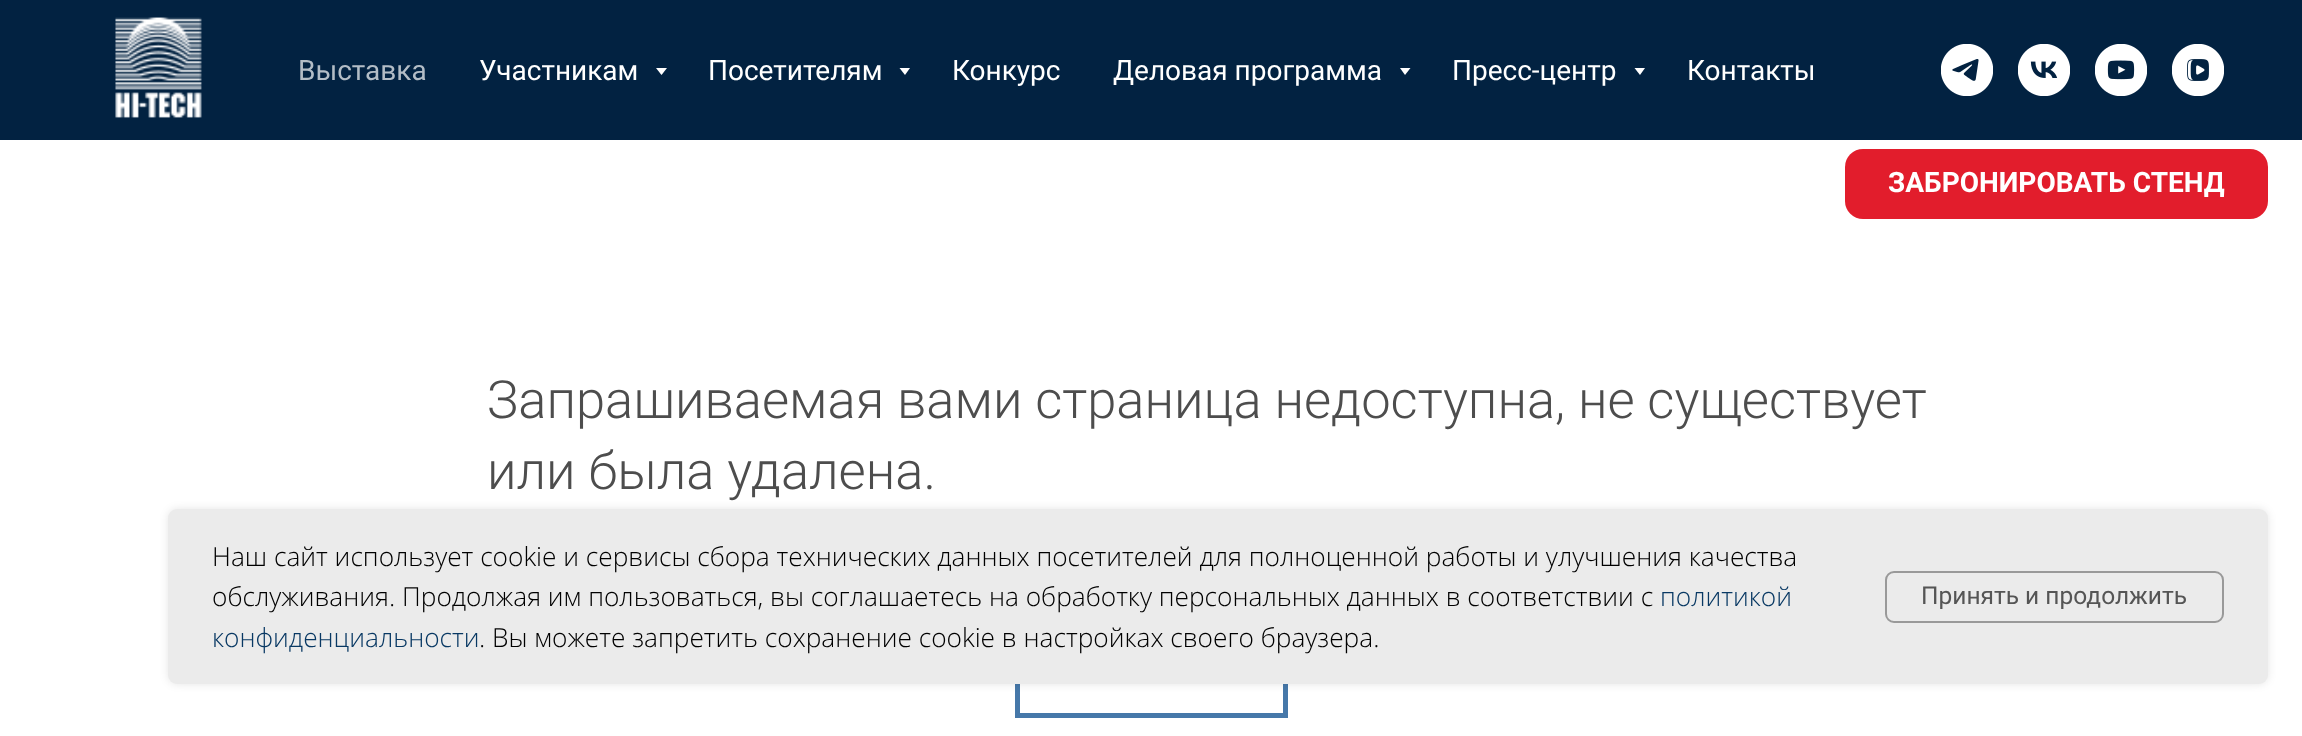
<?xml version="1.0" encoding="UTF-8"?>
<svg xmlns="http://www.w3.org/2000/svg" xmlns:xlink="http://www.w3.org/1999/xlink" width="2302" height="736">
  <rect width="100%" height="100%" fill="#ffffff" />
  <rect width="2302" height="140" fill="#022241" />
  <image x="115" y="17" width="87" height="101" xlink:href="image1.png" />
  <path d="M 656 68 h 11 l -5.5 7 z" fill="#ffffff" />
  <path d="M 899.5 68 h 10.5 l -5 7 z" fill="#ffffff" />
  <path d="M 1400 68 h 10.5 l -5.5 7 z" fill="#ffffff" />
  <path d="M 1634.5 68 h 10.5 l -5 7 z" fill="#ffffff" />
  <image x="1941" y="44" width="52" height="52" xlink:href="image2.png" />
  <image x="2018" y="44" width="52" height="52" xlink:href="image3.png" />
  <image x="2095" y="44" width="52" height="52" xlink:href="image4.png" />
  <image x="2172" y="44" width="52" height="52" xlink:href="image5.png" />
  <rect x="1845" y="149" width="423" height="70" rx="18" fill="#e21d2c" />
  <rect x="1017.5" y="641.5" width="268" height="74" fill="none" stroke="#4678a9" stroke-width="5" />
  <rect x="168" y="509" width="2100" height="175" rx="9" fill="#000000" fill-opacity="0.1" filter="blur(4.5px)" />
  <rect x="168" y="509" width="2100" height="175" rx="9" fill="#ebebeb" />
  <rect x="1886" y="572" width="337" height="50" rx="8" fill="none" stroke="#999999" stroke-width="2" />
  <text x="298" y="80" style="font-family: Roboto; font-size: 28px; fill: #b3bdc6">Выставка</text>
  <text x="479" y="80" style="font-family: Roboto; font-size: 28px; fill: #ffffff">Участникам</text>
  <text x="708" y="80" style="font-family: Roboto; font-size: 28px; fill: #ffffff">Посетителям</text>
  <text x="952" y="80" style="font-family: Roboto; font-size: 28px; fill: #ffffff">Конкурс</text>
  <text x="1113" y="80" style="font-family: Roboto; font-size: 28px; fill: #ffffff">Деловая программа</text>
  <text x="1452" y="80" style="font-family: Roboto; font-size: 28px; fill: #ffffff">Пресс-центр</text>
  <text x="1687" y="80" style="font-family: Roboto; font-size: 28px; fill: #ffffff">Контакты</text>
  <text x="1888" y="192" style="font-family: Roboto; font-size: 28px; font-weight: bold; fill: #ffffff">ЗАБРОНИРОВАТЬ СТЕНД</text>
  <text x="487" y="418" style="font-family: Roboto; font-size: 52.5px; font-weight: 300; fill: #4d4d4d">Запрашиваемая вами страница недоступна, не существует</text>
  <text x="487" y="489" style="font-family: Roboto; font-size: 52.5px; font-weight: 300; fill: #4d4d4d">или была удалена.</text>
  <text x="212" y="566" style="font-family: Open Sans; font-size: 26.25px; font-weight: 300; fill: #000000">Наш сайт использует cookie и сервисы сбора технических данных посетителей для полноценной работы и улучшения качества</text>
  <text x="212" y="606" style="font-family: Open Sans; font-size: 26.25px; font-weight: 300; fill: #000000">обслуживания. Продолжая им пользоваться, вы соглашаетесь на обработку персональных данных в соответствии с</text>
  <text x="1660" y="606" style="font-family: Open Sans; font-size: 26.25px; font-weight: 300; fill: #083863">политикой</text>
  <text x="212" y="647" style="font-family: Open Sans; font-size: 26.25px; font-weight: 300; fill: #083863">конфиденциальности</text>
  <text x="479" y="647" style="font-family: Open Sans; font-size: 26.25px; font-weight: 300; fill: #000000">. Вы можете запретить сохранение cookie в настройках своего браузера.</text>
  <text x="1921" y="604" style="font-family: Roboto; font-size: 24.5px; fill: #555555">Принять и продолжить</text>
</svg>
